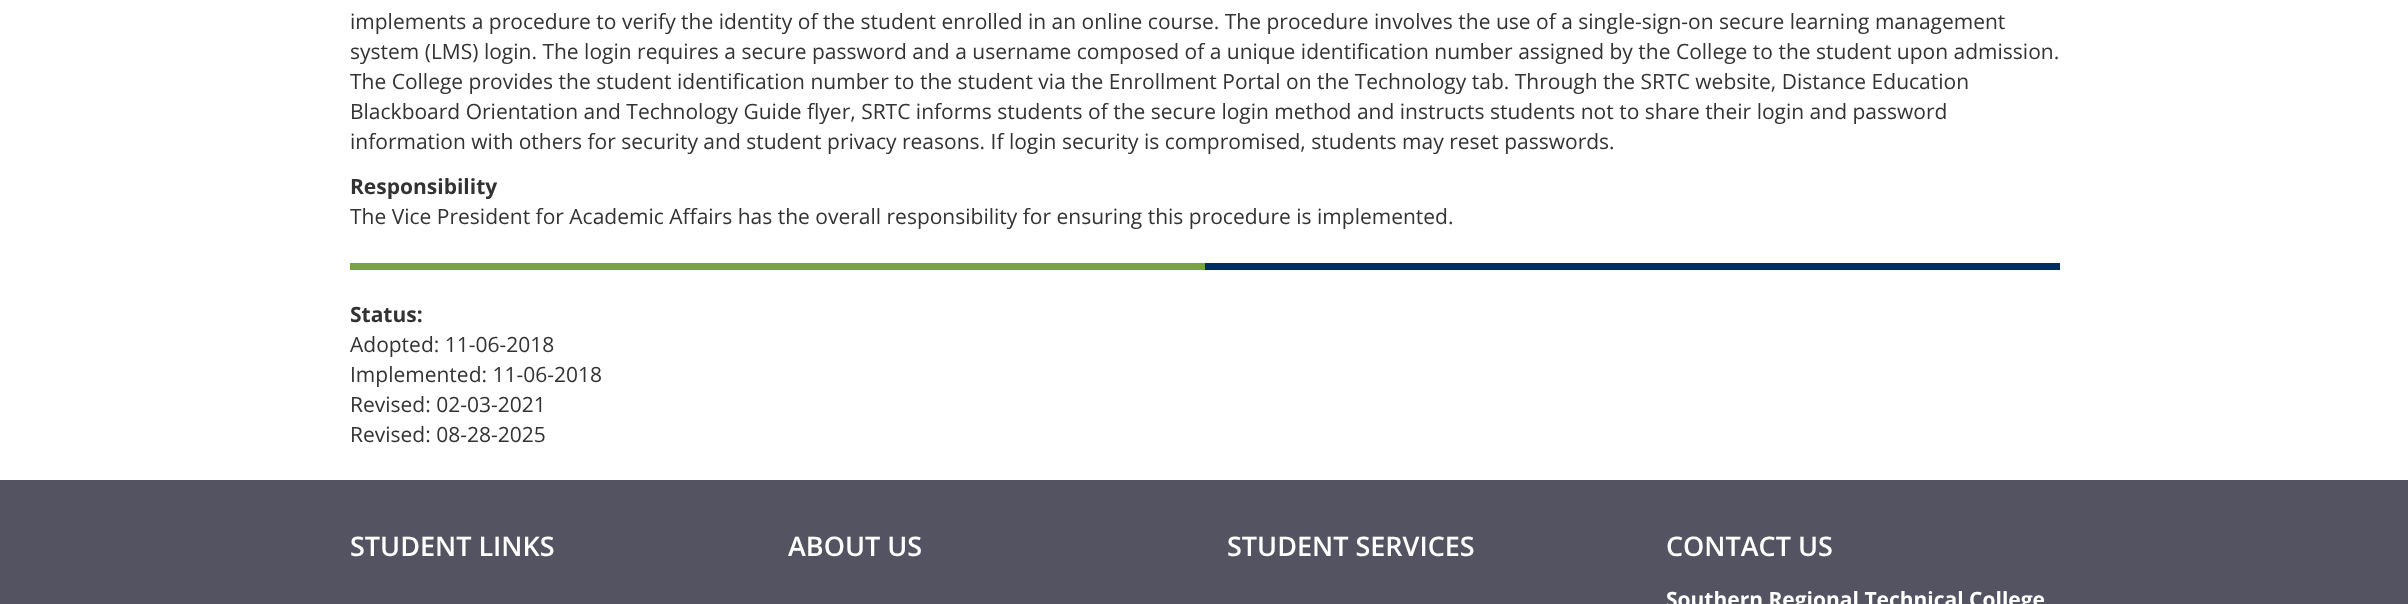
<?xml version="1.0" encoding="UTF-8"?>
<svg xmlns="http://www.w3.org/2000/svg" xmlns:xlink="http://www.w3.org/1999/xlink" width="2408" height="604">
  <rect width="100%" height="100%" fill="#ffffff" />
  <rect x="1205" y="263" width="855" height="7" fill="#002e5d" />
  <rect x="350" y="263" width="855" height="7" fill="#79a340" />
  <rect y="480" width="2408" height="124" fill="#535362" />
  <text x="350" y="29" style="font-family: Open Sans; font-size: 21px; fill: #333333">implements a procedure to verify the identity of the student enrolled in an online course. The procedure involves the use of a single-sign-on secure learning management</text>
  <text x="350" y="59" style="font-family: Open Sans; font-size: 21px; fill: #333333">system (LMS) login. The login requires a secure password and a username composed of a unique identification number assigned by the College to the student upon admission.</text>
  <text x="350" y="89" style="font-family: Open Sans; font-size: 21px; fill: #333333">The College provides the student identification number to the student via the Enrollment Portal on the Technology tab. Through the SRTC website, Distance Education</text>
  <text x="350" y="119" style="font-family: Open Sans; font-size: 21px; fill: #333333">Blackboard Orientation and Technology Guide flyer, SRTC informs students of the secure login method and instructs students not to share their login and password</text>
  <text x="350" y="149" style="font-family: Open Sans; font-size: 21px; fill: #333333">information with others for security and student privacy reasons. If login security is compromised, students may reset passwords.</text>
  <text x="350" y="194" style="font-family: Open Sans; font-size: 21px; font-weight: bold; fill: #333333">Responsibility</text>
  <text x="350" y="224" style="font-family: Open Sans; font-size: 21px; fill: #333333">The Vice President for Academic Affairs has the overall responsibility for ensuring this procedure is implemented.</text>
  <text x="350" y="322" style="font-family: Open Sans; font-size: 21px; font-weight: bold; fill: #333333">Status:</text>
  <text x="350" y="352" style="font-family: Open Sans; font-size: 21px; fill: #333333">Adopted: 11-06-2018</text>
  <text x="350" y="382" style="font-family: Open Sans; font-size: 21px; fill: #333333">Implemented: 11-06-2018</text>
  <text x="350" y="412" style="font-family: Open Sans; font-size: 21px; fill: #333333">Revised: 02-03-2021</text>
  <text x="350" y="442" style="font-family: Open Sans; font-size: 21px; fill: #333333">Revised: 08-28-2025</text>
  <text x="350" y="556" style="font-family: Open Sans; font-size: 27px; font-weight: 600; fill: #ffffff">STUDENT LINKS</text>
  <text x="788" y="556" style="font-family: Open Sans; font-size: 27px; font-weight: 600; fill: #ffffff">ABOUT US</text>
  <text x="1227" y="556" style="font-family: Open Sans; font-size: 27px; font-weight: 600; fill: #ffffff">STUDENT SERVICES</text>
  <text x="1666" y="556" style="font-family: Open Sans; font-size: 27px; font-weight: 600; fill: #ffffff">CONTACT US</text>
  <text x="1666" y="607" style="font-family: Open Sans; font-size: 21px; font-weight: bold; fill: #ffffff">Southern Regional Technical College</text>
</svg>
